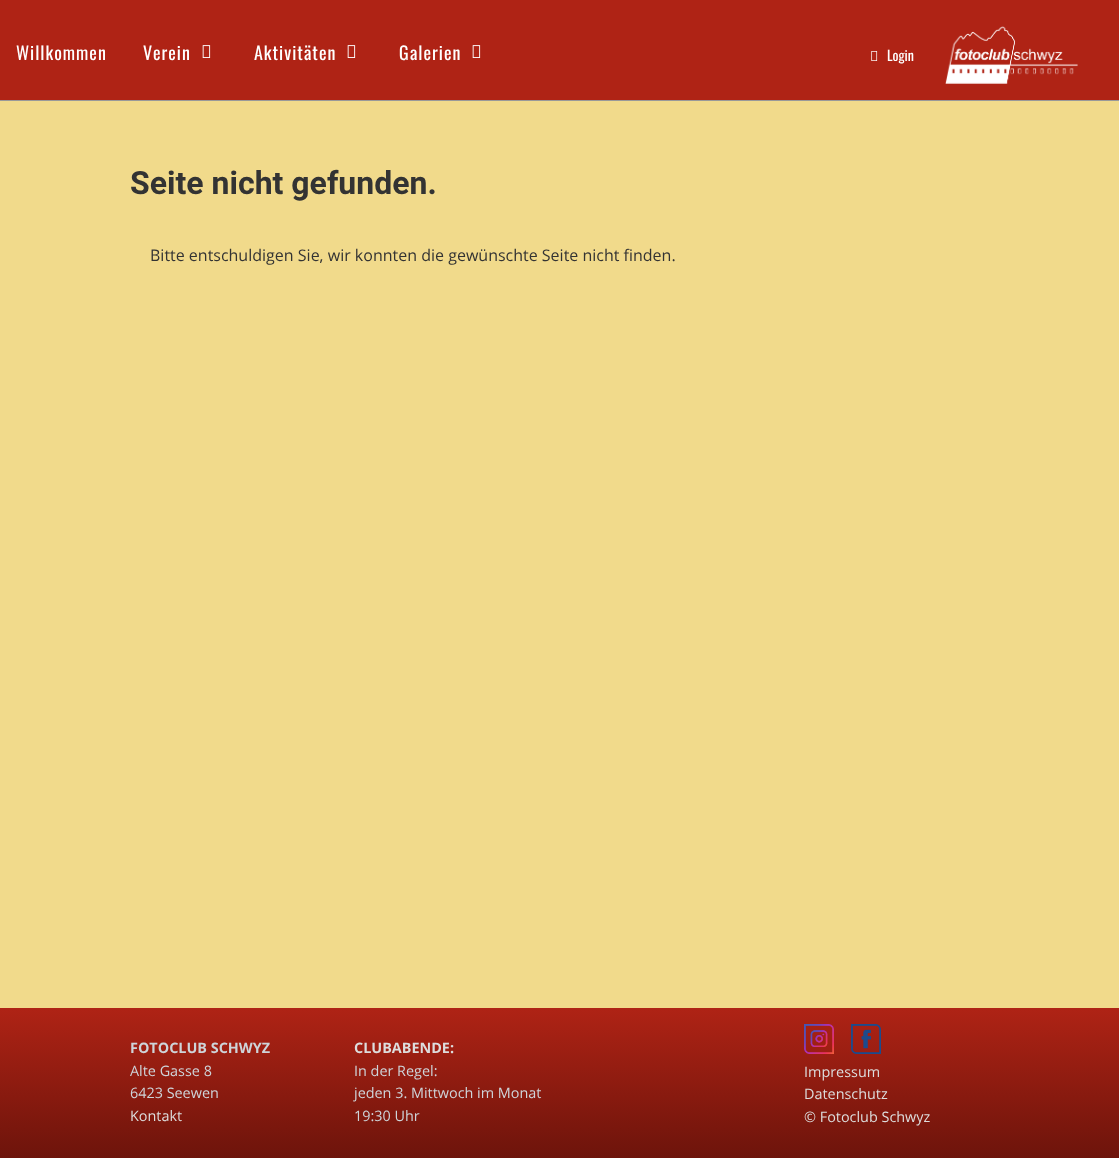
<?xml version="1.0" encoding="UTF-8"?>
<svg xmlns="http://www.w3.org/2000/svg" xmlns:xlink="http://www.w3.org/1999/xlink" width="1119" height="1158">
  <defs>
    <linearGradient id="g1" gradientUnits="userSpaceOnUse" x1="560" y1="1008" x2="560" y2="1158"><stop offset="0" stop-color="#af2315" /><stop offset="1" stop-color="#6d140b" /></linearGradient>
  </defs>
  <rect width="100%" height="100%" fill="#f1da8b" />
  <rect width="1119" height="100" fill="#af2315" />
  <rect y="100" width="1119" height="1" fill="#999999" />
  <image x="202" y="45" width="9" height="13" xlink:href="image1.png" />
  <image x="347" y="45" width="9" height="13" xlink:href="image1.png" />
  <image x="472" y="45" width="9" height="13" xlink:href="image1.png" />
  <image x="871" y="51" width="7" height="10" xlink:href="image2.png" />
  <image x="945" y="26" width="133" height="58" xlink:href="image3.png" />
  <rect y="1008" width="1119" height="150" fill="url(#g1)" />
  <image x="804" y="1024" width="30" height="30" xlink:href="image4.png" />
  <image x="851" y="1024" width="30" height="30" xlink:href="image5.png" />
  <text x="16" y="60" style="font-family: Oswald; font-size: 18px; letter-spacing: 1px; fill: #ffffff">Willkommen</text>
  <text x="143" y="60" style="font-family: Oswald; font-size: 18px; letter-spacing: 1px; fill: #ffffff">Verein</text>
  <text x="254" y="60" style="font-family: Oswald; font-size: 18px; letter-spacing: 1px; fill: #ffffff">Aktivitäten</text>
  <text x="399" y="60" style="font-family: Oswald; font-size: 18px; letter-spacing: 1px; fill: #ffffff">Galerien</text>
  <text x="887" y="61" style="font-family: Oswald; font-size: 14px; fill: #ffffff">Login</text>
  <text x="130" y="194" style="font-family: Roboto; font-size: 32px; font-weight: bold; fill: #333333">Seite nicht gefunden.</text>
  <text x="150" y="261" style="font-family: Open Sans; font-size: 16px; fill: #333333">Bitte entschuldigen Sie, wir konnten die gewünschte Seite nicht finden.</text>
  <text x="130" y="1053" style="font-family: Open Sans; font-size: 14.4px; font-weight: bold; fill: #ced4d9">FOTOCLUB SCHWYZ</text>
  <text x="130" y="1076" style="font-family: Open Sans; font-size: 14.4px; fill: #ced4d9">Alte Gasse 8</text>
  <text x="130" y="1098" style="font-family: Open Sans; font-size: 14.4px; fill: #ced4d9">6423 Seewen</text>
  <text x="130" y="1121" style="font-family: Open Sans; font-size: 14.4px; fill: #dddddd">Kontakt</text>
  <text x="354" y="1053" style="font-family: Open Sans; font-size: 14.4px; font-weight: bold; fill: #dddddd">CLUBABENDE:</text>
  <text x="354" y="1076" style="font-family: Open Sans; font-size: 14.4px; fill: #ced4d9">In der Regel:</text>
  <text x="354" y="1098" style="font-family: Open Sans; font-size: 14.4px; fill: #ced4d9">jeden 3. Mittwoch im Monat</text>
  <text x="354" y="1121" style="font-family: Open Sans; font-size: 14.4px; fill: #ced4d9">19:30 Uhr</text>
  <text x="804" y="1077" style="font-family: Open Sans; font-size: 14.4px; fill: #dddddd">Impressum</text>
  <text x="804" y="1099" style="font-family: Open Sans; font-size: 14.4px; fill: #dddddd">Datenschutz</text>
  <text x="804" y="1122" style="font-family: Open Sans; font-size: 14.4px; fill: #dddddd">© Fotoclub Schwyz</text>
</svg>
